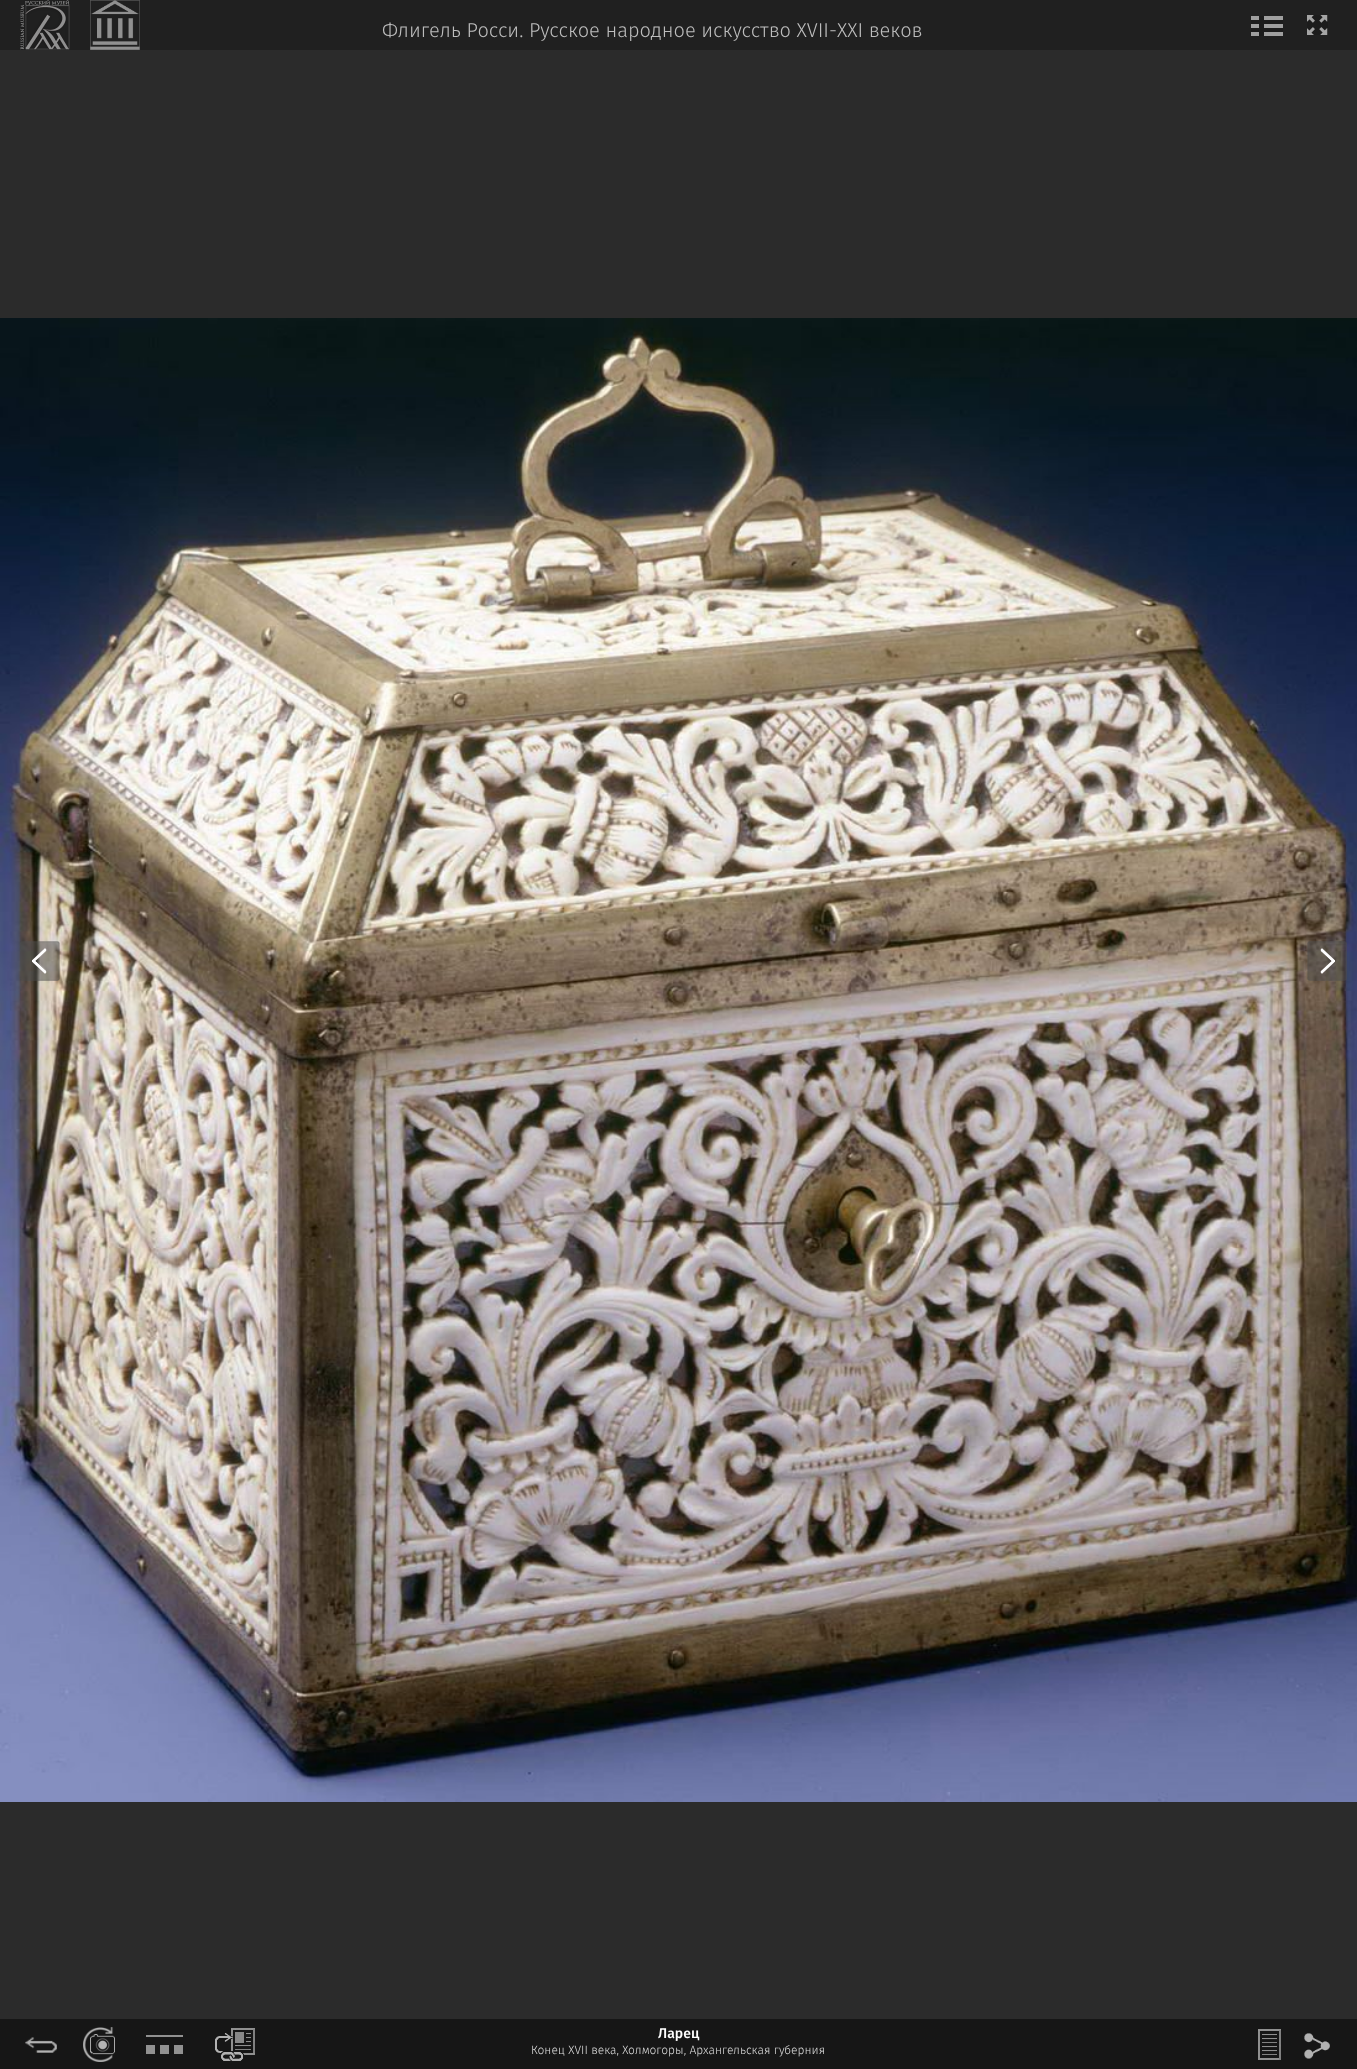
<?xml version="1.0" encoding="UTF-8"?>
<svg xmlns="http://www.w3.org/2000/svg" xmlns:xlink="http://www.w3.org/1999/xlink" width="1357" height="2069">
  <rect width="100%" height="100%" fill="#2b2b2b" />
  <rect width="1357" height="50" fill="#202020" />
  <image x="20" y="0" width="50" height="50" xlink:href="image1.png" />
  <image x="90" y="0" width="50" height="50" xlink:href="image2.png" />
  <image x="1251" y="16" width="32" height="20" xlink:href="image3.png" />
  <image x="1307" y="15" width="21" height="20" xlink:href="image4.png" />
  <image x="0" y="318" width="1357" height="1484" xlink:href="image5.png" />
  <image x="20" y="941" width="40" height="40" xlink:href="image6.png" />
  <image x="1307" y="941" width="40" height="40" xlink:href="image7.png" />
  <rect y="2019" width="1357" height="50" fill="#161616" />
  <image x="25" y="2037" width="32" height="16" xlink:href="image8.png" />
  <image x="83" y="2027" width="32" height="35" xlink:href="image9.png" />
  <image x="146" y="2035" width="37" height="19" xlink:href="image10.png" />
  <image x="215" y="2028" width="40" height="33" xlink:href="image11.png" />
  <image x="1304" y="2033" width="26" height="26" xlink:href="image12.png" />
  <image x="1258" y="2029" width="23" height="31" xlink:href="image13.png" />
  <text x="382" y="37" style="font-family: Fira Sans; font-size: 20px; font-weight: 300; fill: #bdbdbd">Флигель Росси. Русское народное искусство XVII‒XXI веков</text>
  <text x="658" y="2038" style="font-family: Fira Sans; font-size: 14px; font-weight: 500; fill: #ffffff">Ларец</text>
  <text x="531" y="2054" style="font-family: Fira Sans; font-size: 12px; font-weight: 300; fill: #dddddd">Конец XVII века, Холмогоры, Архангельская губерния</text>
</svg>
